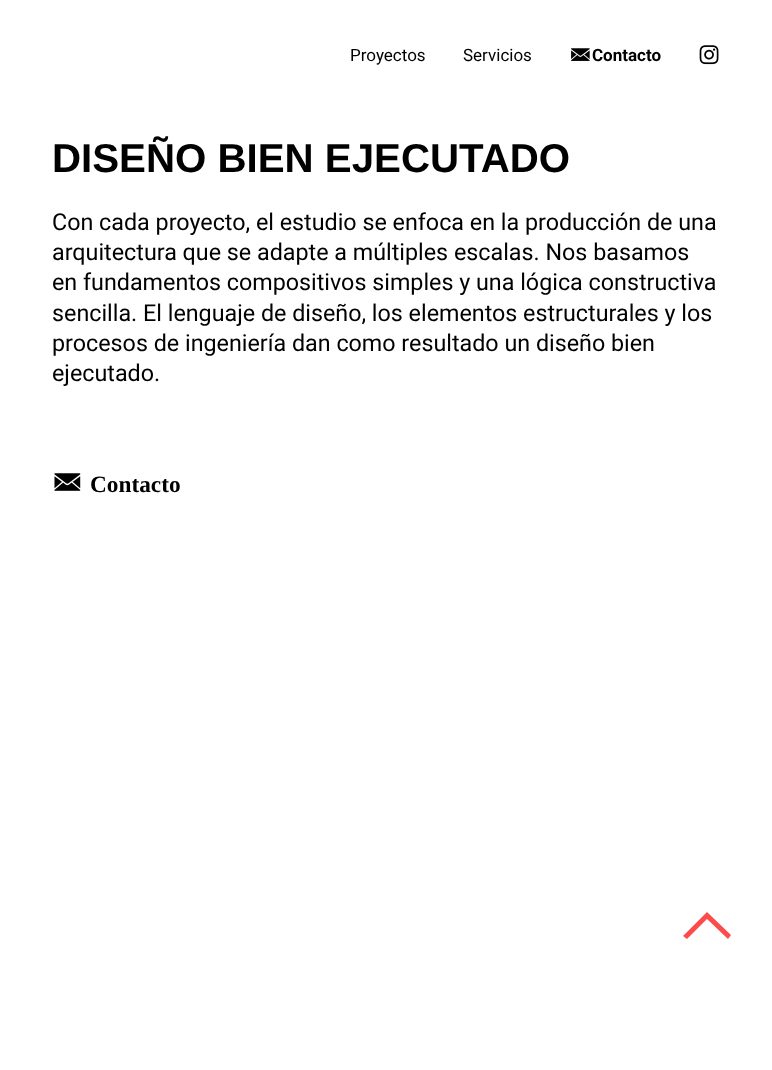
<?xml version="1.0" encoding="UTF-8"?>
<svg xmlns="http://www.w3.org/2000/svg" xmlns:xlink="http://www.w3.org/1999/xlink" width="772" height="1070">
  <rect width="100%" height="100%" fill="#ffffff" />
  <image x="571" y="48" width="19" height="13" xlink:href="image1.png" />
  <image x="699" y="45" width="20" height="20" xlink:href="image2.png" />
  <image x="54" y="473" width="27" height="18" xlink:href="image3.png" />
  <path d="M 707 912 l -24 24 l 4 3 l 20 -20 l 21 20 l 3 -4 z" fill="#fc4d4d" />
  <text x="350" y="61" style="font-family: Roboto; font-size: 17px; fill: #000000">Proyectos</text>
  <text x="463" y="61" style="font-family: Roboto; font-size: 17px; fill: #000000">Servicios</text>
  <text x="592" y="61" style="font-family: Roboto; font-size: 17px; font-weight: bold; fill: #000000">Contacto</text>
  <text x="52" y="172" style="font-family: Liberation Sans; font-size: 40.25px; font-weight: bold; fill: #000000">DISEÑO BIEN EJECUTADO</text>
  <text x="52" y="230" style="font-family: Roboto; font-size: 23.3px; fill: #000000">Con cada proyecto, el estudio se enfoca en la producción de una</text>
  <text x="52" y="260" style="font-family: Roboto; font-size: 23.3px; fill: #000000">arquitectura que se adapte a múltiples escalas. Nos basamos</text>
  <text x="52" y="290" style="font-family: Roboto; font-size: 23.3px; fill: #000000">en fundamentos compositivos simples y una lógica constructiva</text>
  <text x="52" y="321" style="font-family: Roboto; font-size: 23.3px; fill: #000000">sencilla. El lenguaje de diseño, los elementos estructurales y los</text>
  <text x="52" y="351" style="font-family: Roboto; font-size: 23.3px; fill: #000000">procesos de ingeniería dan como resultado un diseño bien</text>
  <text x="52" y="381" style="font-family: Roboto; font-size: 23.3px; fill: #000000">ejecutado.</text>
  <text x="90" y="492" style="font-family: Liberation Serif; font-size: 23.3px; font-weight: bold; fill: #000000">Contacto</text>
</svg>
